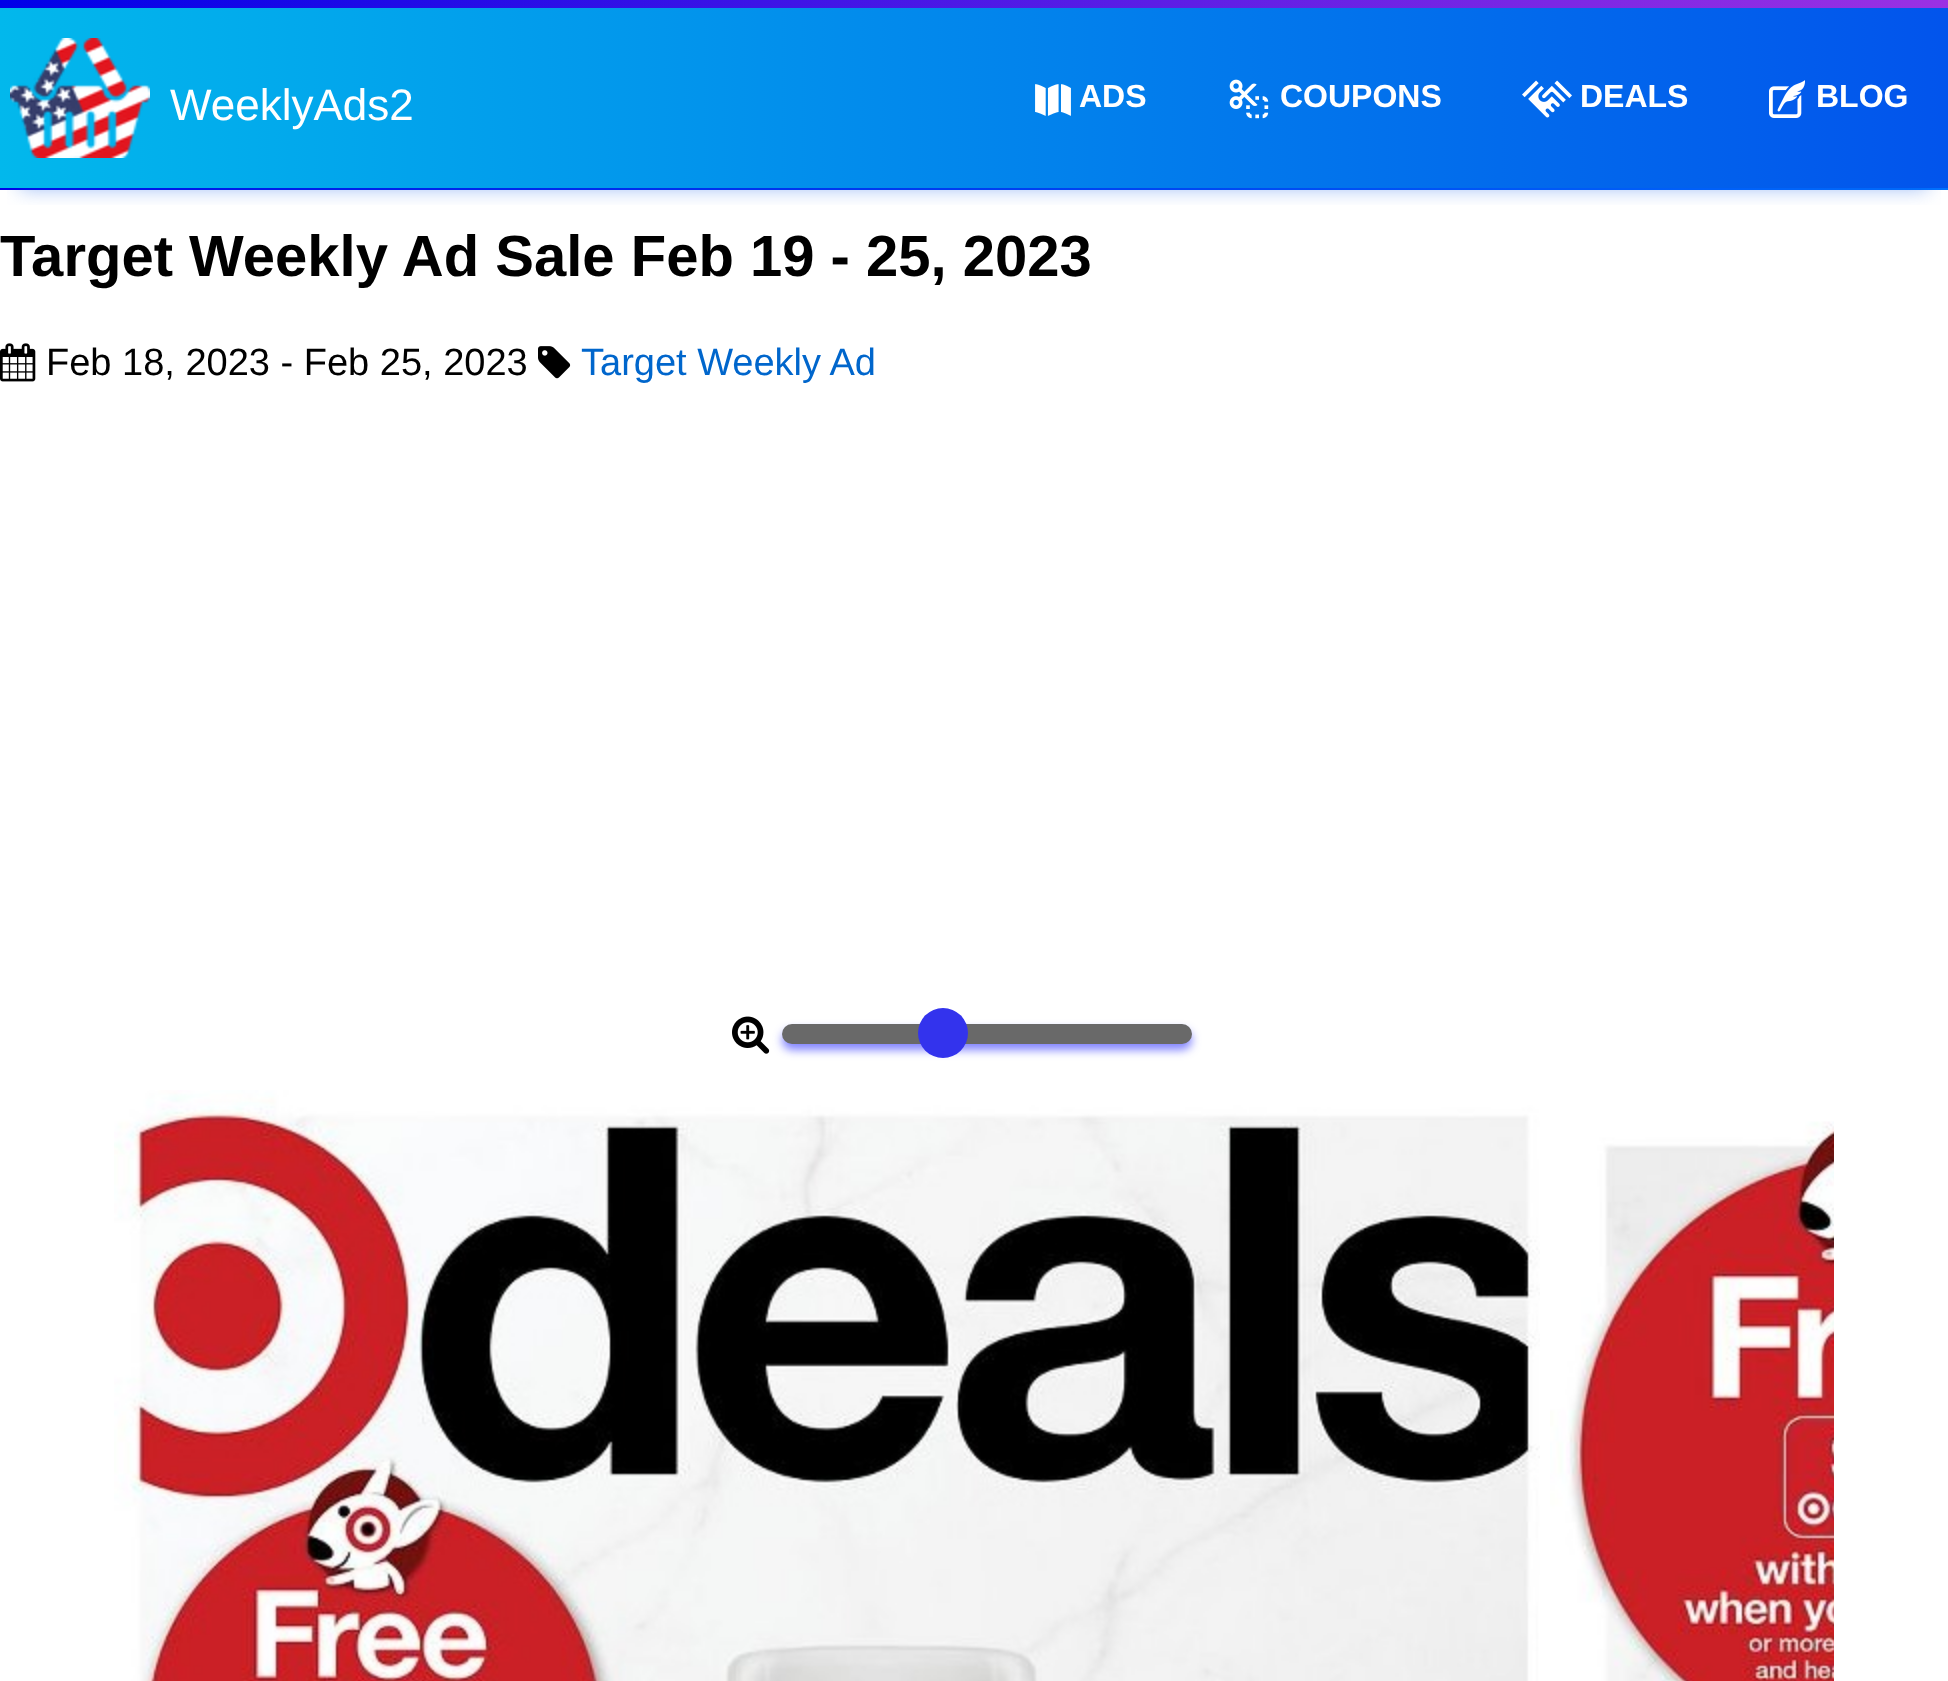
<?xml version="1.0" encoding="UTF-8"?>
<svg xmlns="http://www.w3.org/2000/svg" xmlns:xlink="http://www.w3.org/1999/xlink" width="1948" height="1681">
  <defs>
    <linearGradient id="g1" gradientUnits="userSpaceOnUse" x1="0" y1="98" x2="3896" y2="98"><stop offset="0" stop-color="#02b8ec" /><stop offset="0.51" stop-color="#0252ec" /><stop offset="1" stop-color="#02b8ec" /></linearGradient>
    <clipPath id="clip1"><rect x="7" y="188" width="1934" height="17" /></clipPath>
  </defs>
  <rect width="100%" height="100%" fill="#ffffff" />
  <image x="0" y="0" width="1948" height="8" xlink:href="image1.png" />
  <rect y="8" width="1948" height="180" fill="url(#g1)" />
  <image x="0" y="188" width="1948" height="2" xlink:href="image2.png" />
  <g clip-path="url(#clip1)">
    <rect x="20" y="48" width="1908" height="140" fill="#0050e8" fill-opacity="0.42" filter="blur(10px)" />
  </g>
  <image x="10" y="38" width="140" height="120" xlink:href="image3.png" />
  <image x="1035" y="84" width="36" height="32" xlink:href="image4.png" />
  <image x="1229" y="79" width="40" height="40" xlink:href="image5.png" />
  <image x="1522" y="80" width="50" height="38" xlink:href="image6.png" />
  <image x="1769" y="80" width="36" height="38" xlink:href="image7.png" />
  <image x="0" y="343" width="36" height="39" xlink:href="image8.png" />
  <image x="538" y="346" width="33" height="33" xlink:href="image9.png" />
  <image x="732" y="1016" width="38" height="38" xlink:href="image10.png" />
  <rect x="782" y="1030" width="410" height="20" rx="10" fill="#3337ff" fill-opacity="0.62" filter="blur(5px)" />
  <rect x="782" y="1024" width="410" height="20" rx="10" fill="#696969" />
  <circle cx="943" cy="1033" r="25" fill="#3333ed" />
  <image x="114" y="1090" width="1426" height="591" xlink:href="image11.png" />
  <image x="1550" y="1121" width="284" height="560" xlink:href="image12.png" />
  <text x="170" y="120" style="font-family: Liberation Sans; font-size: 44px; fill: #ffffff">WeeklyAds2</text>
  <text x="1079" y="107" style="font-family: Liberation Sans; font-size: 32px; font-weight: bold; fill: #ffffff">ADS</text>
  <text x="1280" y="107" style="font-family: Liberation Sans; font-size: 32px; font-weight: bold; fill: #ffffff">COUPONS</text>
  <text x="1580" y="107" style="font-family: Liberation Sans; font-size: 32px; font-weight: bold; fill: #ffffff">DEALS</text>
  <text x="1816" y="107" style="font-family: Liberation Sans; font-size: 32px; font-weight: bold; fill: #ffffff">BLOG</text>
  <text x="0" y="276" style="font-family: Liberation Sans; font-size: 58px; font-weight: bold; fill: #000000">Target Weekly Ad Sale Feb 19 - 25, 2023</text>
  <text x="46" y="375" style="font-family: Liberation Sans; font-size: 38px; fill: #000000">Feb 18, 2023 - Feb 25, 2023</text>
  <text x="581" y="375" style="font-family: Liberation Sans; font-size: 38px; fill: #0066cc">Target Weekly Ad</text>
</svg>
